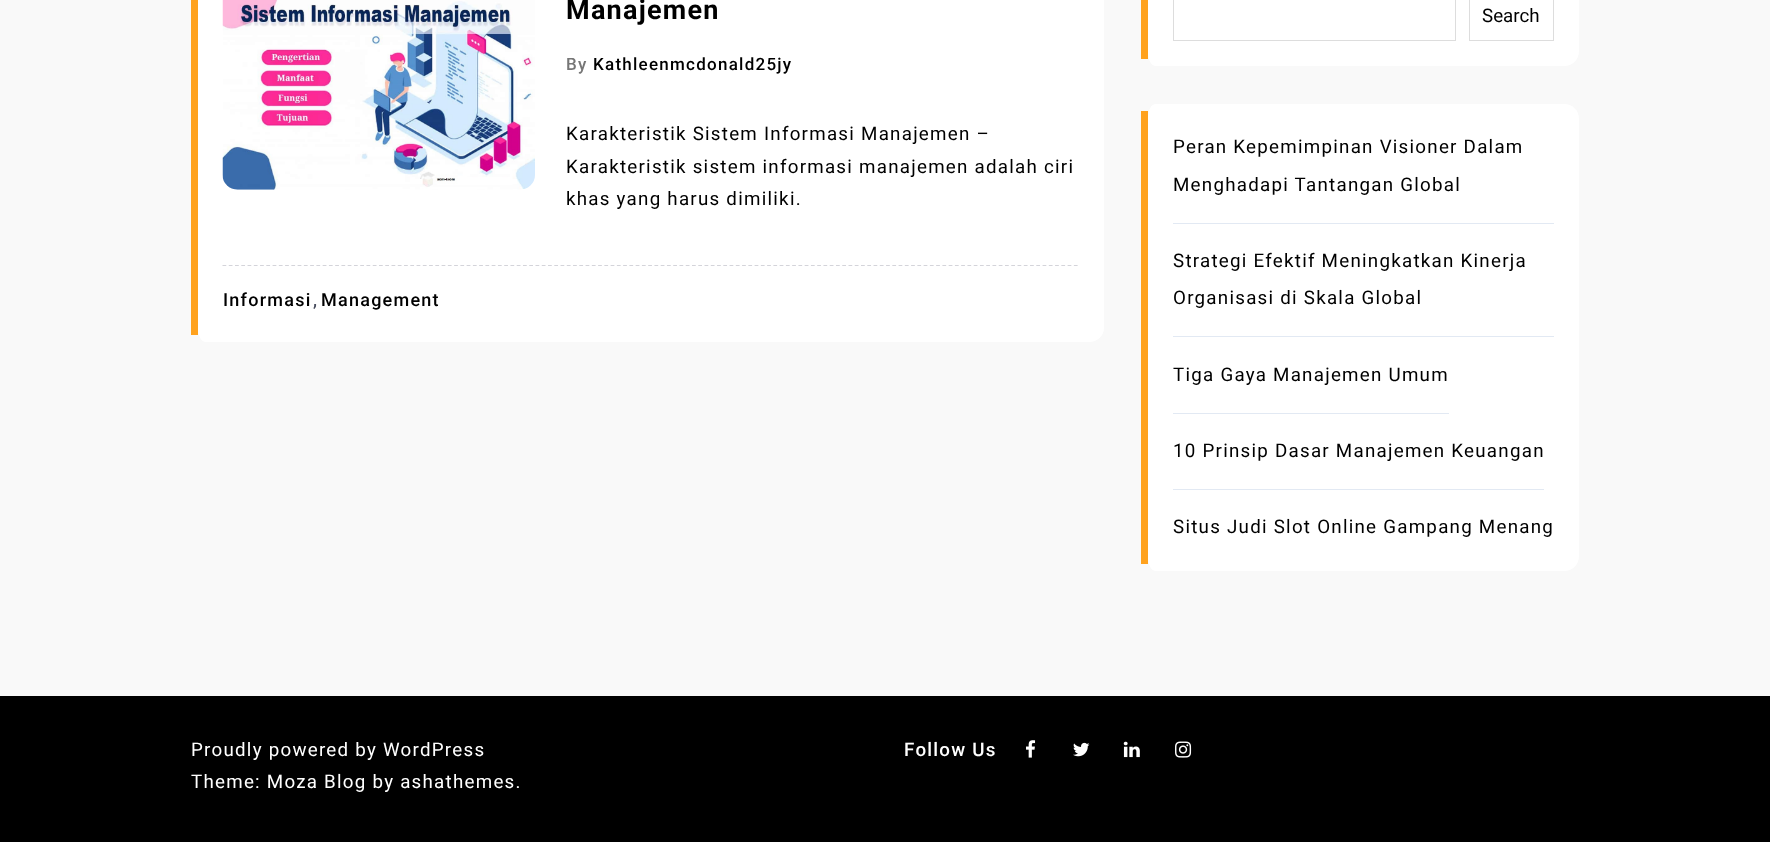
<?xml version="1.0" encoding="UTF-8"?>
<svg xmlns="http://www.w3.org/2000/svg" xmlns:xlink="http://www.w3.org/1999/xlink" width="1770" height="842">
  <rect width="100%" height="100%" fill="#f9f9f9" />
  <path d="M 206 -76 h 883 c 8 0 15 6 15 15 v 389 c 0 8 -7 14 -15 14 h -883 c -5 0 -8 -6 -8 -14 v -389 c 0 -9 3 -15 8 -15 z" fill="#ffffff" />
  <rect x="191" width="7" height="335" fill="#ffa21e" />
  <image x="222" y="0" width="313" height="190" xlink:href="image1.png" />
  <path d="M 222.5 265.5 h 856.5" fill="none" stroke="#d4d4da" stroke-width="1.2" stroke-dasharray="3.75 2.51" />
  <path d="M 1156 -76 h 408 c 8 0 15 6 15 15 v 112 c 0 9 -7 15 -15 15 h -408 c -5 0 -8 -6 -8 -15 v -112 c 0 -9 3 -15 8 -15 z" fill="#ffffff" />
  <rect x="1141" width="7" height="59" fill="#ffa21e" />
  <rect x="1173.5" y="-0.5" width="282" height="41" fill="none" stroke="#dddddd" />
  <rect x="1469.5" y="-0.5" width="84" height="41" fill="none" stroke="#dddddd" />
  <path d="M 1156 104 h 408 c 8 0 15 6 15 15 v 437 c 0 9 -7 15 -15 15 h -408 c -5 0 -8 -6 -8 -15 v -437 c 0 -9 3 -15 8 -15 z" fill="#ffffff" />
  <rect x="1141" y="111" width="7" height="453" fill="#ffa21e" />
  <rect x="1173" y="223" width="381" height="1" fill="#e2e9f3" />
  <rect x="1173" y="336" width="381" height="1" fill="#e2e9f3" />
  <rect x="1173" y="413" width="276" height="1" fill="#e2e9f3" />
  <rect x="1173" y="489" width="371" height="1" fill="#e2e9f3" />
  <rect y="696" width="1770" height="146" fill="#000000" />
  <image x="1026" y="740" width="10" height="18" xlink:href="image2.png" />
  <image x="1073" y="742" width="17" height="15" xlink:href="image3.png" />
  <image x="1123" y="741" width="17" height="17" xlink:href="image4.png" />
  <image x="1175" y="741" width="17" height="17" xlink:href="image5.png" />
  <text x="566" y="19" style="font-family: Roboto; font-size: 27px; font-weight: bold; letter-spacing: 1.25px; fill: #000000">Manajemen</text>
  <text x="566" y="70" style="font-family: Roboto; font-size: 17px; font-weight: 500; letter-spacing: 1.25px; fill: #767676">By</text>
  <text x="593" y="70" style="font-family: Roboto; font-size: 17px; font-weight: 500; letter-spacing: 1.25px; fill: #000000">Kathleenmcdonald25jy</text>
  <text x="566" y="140" style="font-family: Roboto; font-size: 18.75px; letter-spacing: 1.25px; fill: #000000">Karakteristik Sistem Informasi Manajemen –</text>
  <text x="566" y="173" style="font-family: Roboto; font-size: 18.75px; letter-spacing: 1.25px; fill: #000000">Karakteristik sistem informasi manajemen adalah ciri</text>
  <text x="566" y="205" style="font-family: Roboto; font-size: 18.75px; letter-spacing: 1.25px; fill: #000000">khas yang harus dimiliki.</text>
  <text x="223" y="306" style="font-family: Roboto; font-size: 18px; font-weight: 500; letter-spacing: 1.25px; fill: #000000">Informasi</text>
  <text x="313" y="306" style="font-family: Roboto; font-size: 18px; font-weight: 500; letter-spacing: 1.25px; fill: #474c5d">,</text>
  <text x="321" y="306" style="font-family: Roboto; font-size: 18px; font-weight: 500; letter-spacing: 1.25px; fill: #000000">Management</text>
  <text x="1482" y="22" style="font-family: Roboto; font-size: 18.75px; fill: #000000">Search</text>
  <text x="1173" y="153" style="font-family: Roboto; font-size: 18.75px; letter-spacing: 1.25px; fill: #000000">Peran Kepemimpinan Visioner Dalam</text>
  <text x="1173" y="191" style="font-family: Roboto; font-size: 18.75px; letter-spacing: 1.25px; fill: #000000">Menghadapi Tantangan Global</text>
  <text x="1173" y="267" style="font-family: Roboto; font-size: 18.75px; letter-spacing: 1.25px; fill: #000000">Strategi Efektif Meningkatkan Kinerja</text>
  <text x="1173" y="304" style="font-family: Roboto; font-size: 18.75px; letter-spacing: 1.25px; fill: #000000">Organisasi di Skala Global</text>
  <text x="1173" y="381" style="font-family: Roboto; font-size: 18.75px; letter-spacing: 1.25px; fill: #000000">Tiga Gaya Manajemen Umum</text>
  <text x="1173" y="457" style="font-family: Roboto; font-size: 18.75px; letter-spacing: 1.25px; fill: #000000">10 Prinsip Dasar Manajemen Keuangan</text>
  <text x="1173" y="533" style="font-family: Roboto; font-size: 18.75px; letter-spacing: 1.25px; fill: #000000">Situs Judi Slot Online Gampang Menang</text>
  <text x="191" y="756" style="font-family: Roboto; font-size: 18.75px; letter-spacing: 1.25px; fill: #ffffff">Proudly powered by WordPress</text>
  <text x="191" y="788" style="font-family: Roboto; font-size: 18.75px; letter-spacing: 1.25px; fill: #ffffff">Theme: Moza Blog by ashathemes.</text>
  <text x="904" y="756" style="font-family: Roboto; font-size: 18.75px; font-weight: 500; letter-spacing: 1.25px; fill: #ffffff">Follow Us</text>
</svg>
